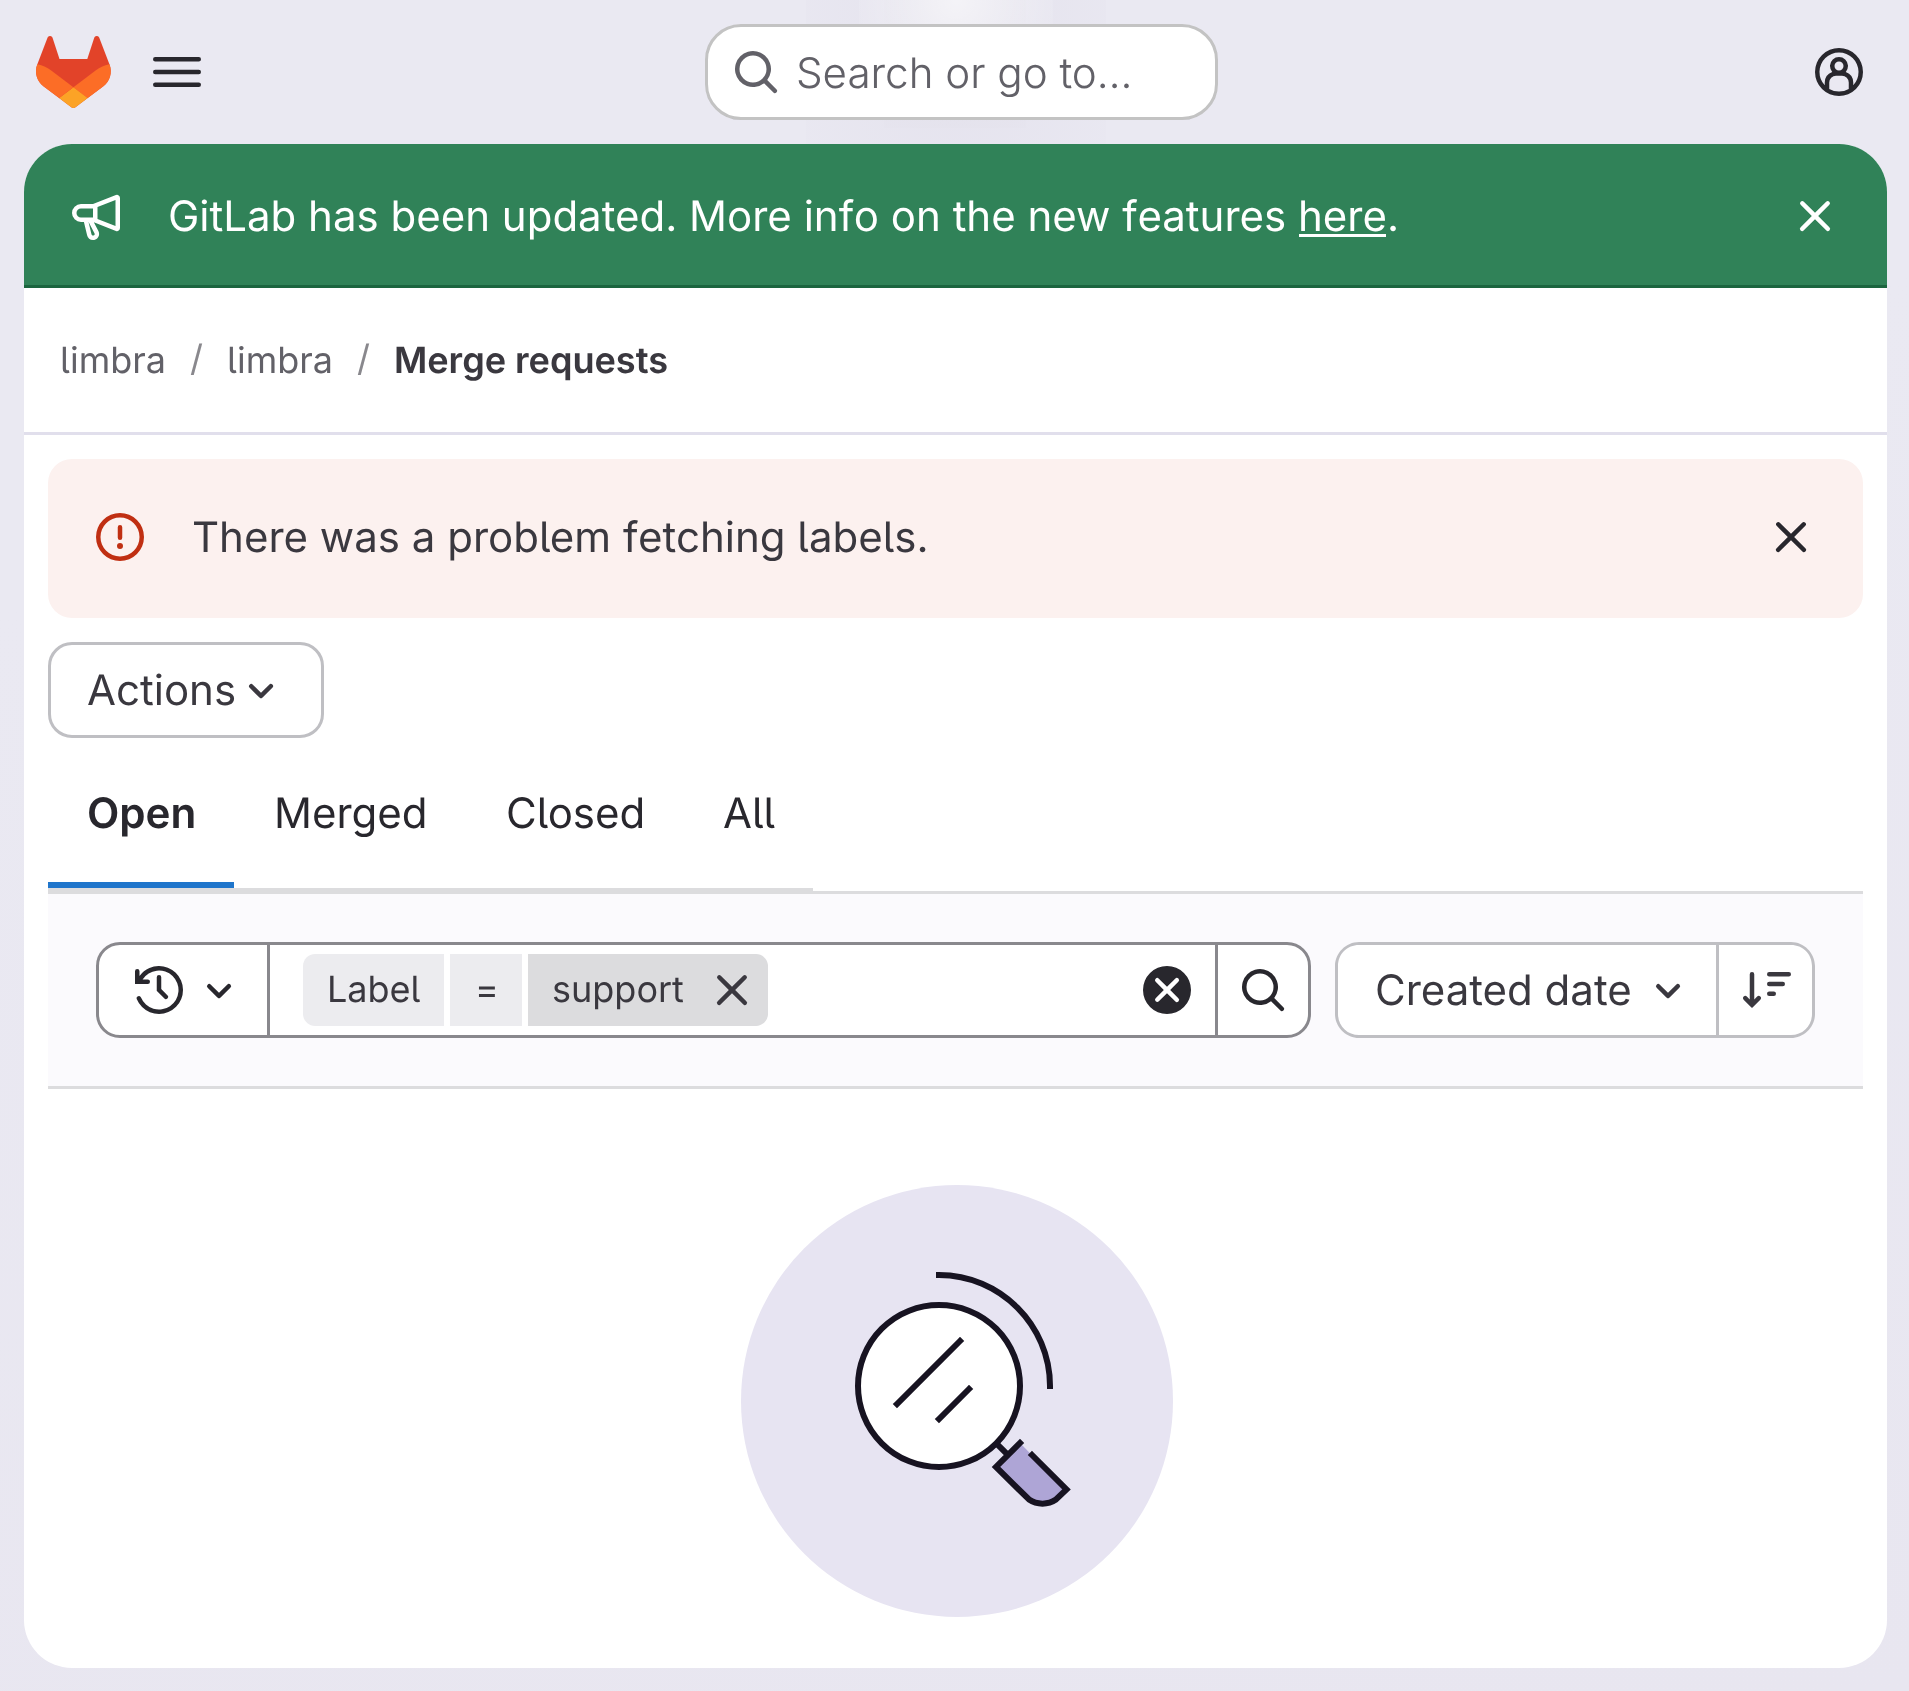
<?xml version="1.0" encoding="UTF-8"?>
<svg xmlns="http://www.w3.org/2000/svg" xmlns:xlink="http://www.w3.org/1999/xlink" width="1909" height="1691">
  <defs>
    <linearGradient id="g1" gradientUnits="userSpaceOnUse" x1="1129" y1="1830" x2="782" y2="-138"><stop offset="0" stop-color="#e8e6f0" /><stop offset="0.7" stop-color="#eae9f2" /></linearGradient>
    <radialGradient id="g2" gradientUnits="userSpaceOnUse" cx="0" cy="0" r="1" gradientTransform="matrix(956 0 0 1692 956 0)"><stop offset="0" stop-color="#e4e2ed" /><stop offset="0.22" stop-color="#e4e2ed" stop-opacity="0" /></radialGradient>
    <radialGradient id="g3" gradientUnits="userSpaceOnUse" cx="0" cy="0" r="1" gradientTransform="matrix(956 0 0 1692 956 0)"><stop offset="0" stop-color="#e4e2ec" /><stop offset="0.16" stop-color="#e4e2ec" stop-opacity="0" /></radialGradient>
    <radialGradient id="g4" gradientUnits="userSpaceOnUse" cx="956" cy="0" r="1943"><stop offset="0" stop-color="#ffffff" stop-opacity="0.6" /><stop offset="0.06" stop-color="#ffffff" stop-opacity="0" /></radialGradient>
  </defs>
  <rect width="100%" height="100%" fill="#ffffff" />
  <rect width="1909" height="1691" fill="url(#g1)" />
  <rect x="806" width="300" height="144" fill="url(#g2)" />
  <rect x="884" width="142" height="128" fill="url(#g3)" />
  <rect x="859" width="194" height="24" fill="url(#g4)" />
  <image x="36" y="36" width="75" height="72" xlink:href="image1.png" />
  <image x="153" y="57" width="48" height="30" xlink:href="image2.png" />
  <rect x="705" y="24" width="513" height="96" rx="36" fill="#ffffff" />
  <rect x="706.5" y="25.5" width="510" height="93" rx="34.5" fill="none" stroke="#050506" stroke-opacity="0.24" stroke-width="3" />
  <image x="735" y="51" width="43" height="43" xlink:href="image3.png" />
  <image x="1815" y="48" width="48" height="48" xlink:href="image4.png" />
  <rect x="24" y="144" width="1863" height="1524" rx="48" fill="#ffffff" />
  <path d="M 72 144 h 1767 c 26.5 0 48 21.5 48 48 v 96 h -1863 v -96 c 0 -26.5 21.5 -48 48 -48 z" fill="#308258" />
  <rect x="24" y="285" width="1863" height="3" fill="#1b653f" />
  <image x="72" y="194" width="48" height="46" xlink:href="image5.png" />
  <rect x="1299" y="234" width="87" height="3" fill="#ffffff" />
  <image x="1799" y="201" width="32" height="31" xlink:href="image6.png" />
  <rect x="24" y="432" width="1863" height="3" fill="#e1dfec" />
  <rect x="48" y="459" width="1815" height="159" rx="24" fill="#fcf1ef" />
  <image x="96" y="513" width="48" height="48" xlink:href="image7.png" />
  <image x="1775" y="522" width="32" height="31" xlink:href="image8.png" />
  <rect x="48" y="891" width="1815" height="3" fill="#dcdcde" />
  <rect x="49.5" y="643.5" width="273" height="93" rx="22.5" fill="none" stroke="#bfbfc3" stroke-width="3" />
  <image x="248" y="683" width="26" height="16" xlink:href="image9.png" />
  <rect x="48" y="888" width="765" height="3" fill="#dcdcde" />
  <rect x="48" y="882" width="186" height="6" fill="#1f75cb" />
  <rect x="48" y="894" width="1815" height="192" fill="#fbfafd" />
  <rect x="48" y="1086" width="1815" height="3" fill="#dcdcde" />
  <rect x="268.5" y="943.5" width="948" height="93" fill="#ffffff" stroke="#89888d" stroke-width="3" />
  <path d="M 120 943.5 h 148.5 v 93 h -148.5 c -12.5 0 -22.5 -10 -22.5 -22.5 v -48 c 0 -12.5 10 -22.5 22.5 -22.5 z" fill="#ffffff" stroke="#89888d" stroke-width="3" />
  <image x="135" y="966" width="48" height="48" xlink:href="image10.png" />
  <image x="206" y="983" width="26" height="16" xlink:href="image11.png" />
  <path d="M 315 954 h 129 v 72 h -129 c -6.5 0 -12 -5.5 -12 -12 v -48 c 0 -6.5 5.5 -12 12 -12 z" fill="#ececef" />
  <rect x="450" y="954" width="72" height="72" fill="#ececef" />
  <path d="M 528 954 h 228 c 6.5 0 12 5.5 12 12 v 48 c 0 6.5 -5.5 12 -12 12 h -228 z" fill="#dcdcde" />
  <image x="716" y="975" width="32" height="31" xlink:href="image12.png" />
  <image x="1143" y="966" width="48" height="48" xlink:href="image13.png" />
  <path d="M 1216.5 943.5 h 70.5 c 12.5 0 22.5 10 22.5 22.5 v 48 c 0 12.5 -10 22.5 -22.5 22.5 h -70.5 z" fill="#ffffff" stroke="#89888d" stroke-width="3" />
  <image x="1242" y="969" width="43" height="43" xlink:href="image14.png" />
  <path d="M 1359 945 h 357 v 90 h -357 c -11.5 0 -21 -9.5 -21 -21 v -48 c 0 -11.5 9.5 -21 21 -21 z" fill="#ffffff" />
  <path d="M 1359 942 h 357 v 96 h -357 c -13 0 -24 -11 -24 -24 v -48 c 0 -13 11 -24 24 -24 z m 0 3 h 357 v 90 h -357 c -12 0 -21 -9 -21 -21 v -48 c 0 -12 9 -21 21 -21 z" fill="#bfbfc3" fill-rule="evenodd" />
  <image x="1655" y="983" width="26" height="16" xlink:href="image15.png" />
  <path d="M 1719 945 h 72 c 11.5 0 21 9.5 21 21 v 48 c 0 11.5 -9.5 21 -21 21 h -72 z" fill="#ffffff" />
  <path d="M 1719 942 h 72 c 13 0 24 11 24 24 v 48 c 0 13 -11 24 -24 24 h -72 z m 0 3 h 72 c 12 0 21 9 21 21 v 48 c 0 12 -9 21 -21 21 h -72 z" fill="#bfbfc3" fill-rule="evenodd" />
  <rect x="1716" y="942" width="3" height="96" fill="#bfbfc3" />
  <image x="1743" y="972" width="48" height="36" xlink:href="image16.png" />
  <circle cx="957" cy="1401" r="216" fill="#e7e4f2" />
  <path d="M 1020 1443 l -24 24 l 33 33 c 8 5 19 5 27 0 l 10 -10 z" fill="#aea5d6" />
  <path d="M 1020 1443 l -24 24 l 33 32.5 c 8 5.5 19 5.5 27 0 l 10.5 -10 l -34.5 -34.5 m -36 -12 l 9 9" fill="none" stroke="#171321" stroke-width="6" stroke-linecap="square" />
  <circle cx="939" cy="1386" r="81" fill="#ffffff" stroke="#171321" stroke-width="6" />
  <path d="M 939 1419 l 30 -30 m -72 15 l 63 -63 m 90 45 c 0 -61 -50 -111 -111 -111" fill="none" stroke="#171321" stroke-width="6" stroke-linecap="square" />
  <text x="796" y="88" style="font-family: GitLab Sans; font-size: 42px; font-weight: 300; fill: #626168">Search or go to…</text>
  <text x="168" y="231" style="font-family: GitLab Sans; font-size: 42px; fill: #ffffff">GitLab has been updated. More info on the new features here.</text>
  <text x="60" y="373" style="font-family: GitLab Sans; font-size: 36px; fill: #626168">limbra</text>
  <text x="190" y="371" style="font-family: GitLab Sans; font-size: 36px; fill: #89888d">/</text>
  <text x="227" y="373" style="font-family: GitLab Sans; font-size: 36px; fill: #626168">limbra</text>
  <text x="357" y="371" style="font-family: GitLab Sans; font-size: 36px; fill: #89888d">/</text>
  <text x="394" y="373" style="font-family: GitLab Sans; font-size: 36px; font-weight: 600; fill: #3a383f">Merge requests</text>
  <text x="192" y="552" style="font-family: GitLab Sans; font-size: 42px; fill: #3a383f">There was a problem fetching labels.</text>
  <text x="87" y="705" style="font-family: GitLab Sans; font-size: 42px; fill: #3a383f">Actions</text>
  <text x="87" y="828" style="font-family: GitLab Sans; font-size: 42px; font-weight: 600; fill: #28272d">Open</text>
  <text x="274" y="828" style="font-family: GitLab Sans; font-size: 42px; fill: #28272d">Merged</text>
  <text x="506" y="828" style="font-family: GitLab Sans; font-size: 42px; fill: #28272d">Closed</text>
  <text x="723" y="828" style="font-family: GitLab Sans; font-size: 42px; fill: #28272d">All</text>
  <text x="327" y="1002" style="font-family: GitLab Sans; font-size: 36px; fill: #3a383f">Label</text>
  <text x="475" y="1002" style="font-family: GitLab Sans; font-size: 36px; fill: #3a383f">=</text>
  <text x="552" y="1002" style="font-family: GitLab Sans; font-size: 36px; fill: #3a383f">support</text>
  <text x="1375" y="1005" style="font-family: GitLab Sans; font-size: 42px; fill: #3a383f">Created date</text>
</svg>
